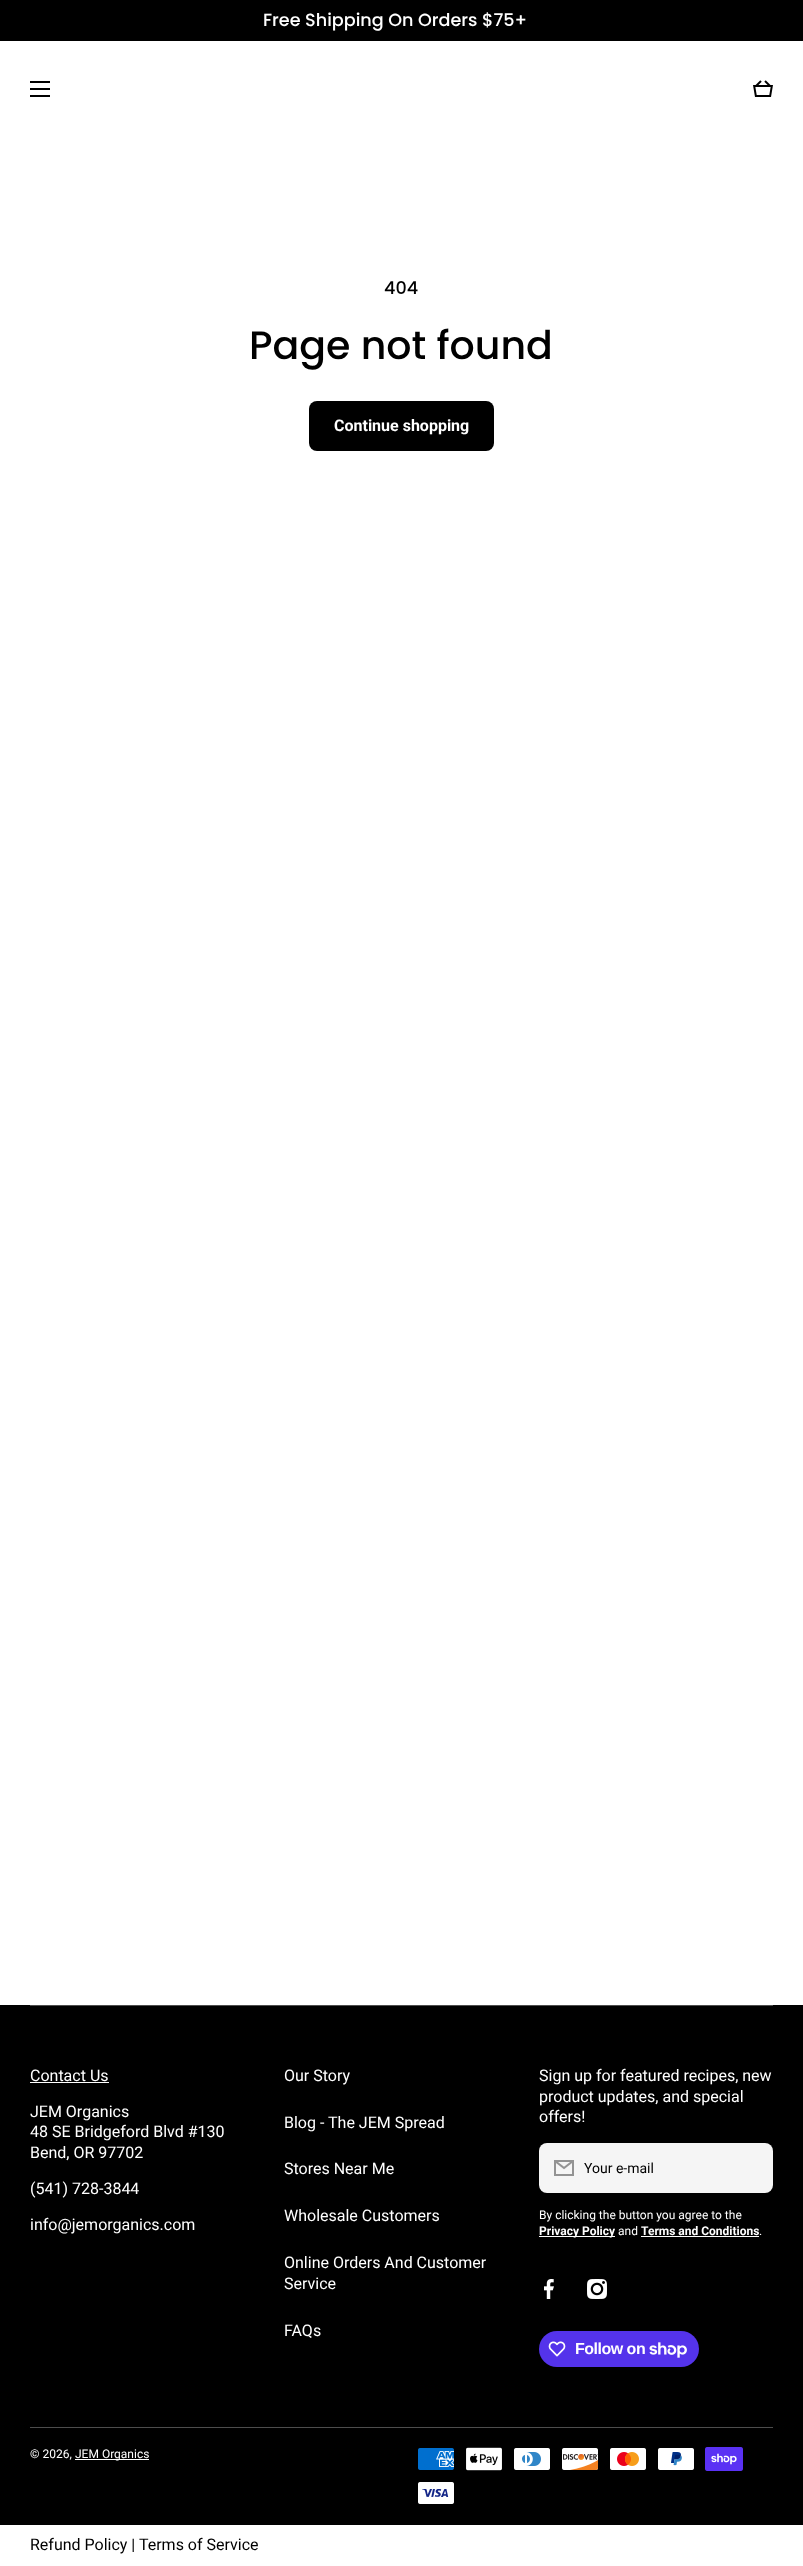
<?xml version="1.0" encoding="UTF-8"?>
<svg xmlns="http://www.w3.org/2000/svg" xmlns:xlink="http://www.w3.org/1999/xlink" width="803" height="2566">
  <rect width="100%" height="100%" fill="#ffffff" />
  <rect width="803" height="41" fill="#000000" />
  <rect x="30" y="81" width="20" height="2" fill="#000000" />
  <rect x="30" y="88" width="20" height="2" fill="#000000" />
  <rect x="30" y="95" width="20" height="2" fill="#000000" />
  <image x="753" y="80" width="20" height="17" xlink:href="image1.png" />
  <rect x="309" y="401" width="185" height="50" rx="8" fill="#000000" />
  <rect y="2005" width="803" height="520" fill="#000000" />
  <rect x="30" y="2005" width="743" height="1" fill="#4d4d4d" />
  <rect x="30" y="2082" width="79" height="1" fill="#ffffff" />
  <rect x="539" y="2143" width="234" height="50" rx="8" fill="#f5f5f5" />
  <image x="554" y="2160" width="20" height="16" xlink:href="image2.png" />
  <rect x="539" y="2236" width="76" height="1" fill="#ffffff" />
  <rect x="641" y="2236" width="118" height="1" fill="#ffffff" />
  <image x="544" y="2279" width="10" height="20" xlink:href="image3.png" />
  <image x="587" y="2279" width="20" height="20" xlink:href="image4.png" />
  <rect x="539" y="2331" width="160" height="36" rx="18" fill="#5433eb" />
  <image x="548" y="2341" width="18" height="16" xlink:href="image5.png" />
  <image x="649" y="2342" width="38" height="16" xlink:href="image6.png" />
  <rect x="30" y="2427" width="743" height="1" fill="#4d4d4d" />
  <rect x="75" y="2459" width="74" height="1" fill="#ffffff" />
  <image x="418" y="2448" width="36" height="22" xlink:href="image7.png" />
  <image x="466" y="2447" width="36" height="24" xlink:href="image8.png" />
  <image x="514" y="2448" width="36" height="22" xlink:href="image9.png" />
  <image x="562" y="2448" width="37" height="22" xlink:href="image10.png" />
  <image x="610" y="2448" width="36" height="22" xlink:href="image11.png" />
  <image x="658" y="2448" width="36" height="22" xlink:href="image12.png" />
  <image x="705" y="2447" width="38" height="24" xlink:href="image13.png" />
  <image x="418" y="2482" width="36" height="22" xlink:href="image14.png" />
  <text x="263" y="26" style="font-family: Poppins; font-size: 17.6px; font-weight: 500; fill: #ffffff">Free Shipping On Orders $75+</text>
  <text x="384" y="294" style="font-family: Poppins; font-size: 17.6px; font-weight: 500; fill: #000000">404</text>
  <text x="249" y="359" style="font-family: Poppins; font-size: 39.5px; font-weight: 500; fill: #000000">Page not found</text>
  <text x="334" y="431" style="font-family: Roboto; font-size: 16px; font-weight: bold; fill: #ffffff">Continue shopping</text>
  <text x="30" y="2081" style="font-family: Roboto; font-size: 16px; fill: #ffffff">Contact Us</text>
  <text x="30" y="2117" style="font-family: Roboto; font-size: 16px; fill: #ffffff">JEM Organics</text>
  <text x="30" y="2137" style="font-family: Roboto; font-size: 16px; fill: #ffffff">48 SE Bridgeford Blvd #130</text>
  <text x="30" y="2158" style="font-family: Roboto; font-size: 16px; fill: #ffffff">Bend, OR 97702</text>
  <text x="30" y="2194" style="font-family: Roboto; font-size: 16px; fill: #ffffff">(541) 728-3844</text>
  <text x="30" y="2230" style="font-family: Roboto; font-size: 16px; fill: #ffffff">info@jemorganics.com</text>
  <text x="284" y="2081" style="font-family: Roboto; font-size: 16px; fill: #ffffff">Our Story</text>
  <text x="284" y="2128" style="font-family: Roboto; font-size: 16px; fill: #ffffff">Blog - The JEM Spread</text>
  <text x="284" y="2174" style="font-family: Roboto; font-size: 16px; fill: #ffffff">Stores Near Me</text>
  <text x="284" y="2221" style="font-family: Roboto; font-size: 16px; fill: #ffffff">Wholesale Customers</text>
  <text x="284" y="2268" style="font-family: Roboto; font-size: 16px; fill: #ffffff">Online Orders And Customer</text>
  <text x="284" y="2289" style="font-family: Roboto; font-size: 16px; fill: #ffffff">Service</text>
  <text x="284" y="2336" style="font-family: Roboto; font-size: 16px; fill: #ffffff">FAQs</text>
  <text x="539" y="2081" style="font-family: Roboto; font-size: 16px; fill: #ffffff">Sign up for featured recipes, new</text>
  <text x="539" y="2102" style="font-family: Roboto; font-size: 16px; fill: #ffffff">product updates, and special</text>
  <text x="539" y="2122" style="font-family: Roboto; font-size: 16px; fill: #ffffff">offers!</text>
  <text x="584" y="2173" style="font-family: Roboto; font-size: 14px; fill: #000000">Your e-mail</text>
  <text x="539" y="2219" style="font-family: Roboto; font-size: 12px; fill: #ffffff">By clicking the button you agree to the</text>
  <text x="539" y="2235" style="font-family: Roboto; font-size: 12px; font-weight: bold; fill: #ffffff">Privacy Policy</text>
  <text x="618" y="2235" style="font-family: Roboto; font-size: 12px; fill: #ffffff">and</text>
  <text x="641" y="2235" style="font-family: Roboto; font-size: 12px; font-weight: bold; fill: #ffffff">Terms and Conditions</text>
  <text x="759" y="2235" style="font-family: Roboto; font-size: 12px; fill: #ffffff">.</text>
  <text x="575" y="2354" style="font-family: Liberation Sans; font-size: 16px; font-weight: bold; letter-spacing: -0.5px; fill: #ffffff">Follow on</text>
  <text x="30" y="2458" style="font-family: Roboto; font-size: 12px; fill: #ffffff">© 2026,</text>
  <text x="75" y="2458" style="font-family: Roboto; font-size: 12px; fill: #ffffff">JEM Organics</text>
  <text x="30" y="2550" style="font-family: Roboto; font-size: 16px; fill: #000000">Refund Policy | Terms of Service</text>
</svg>
